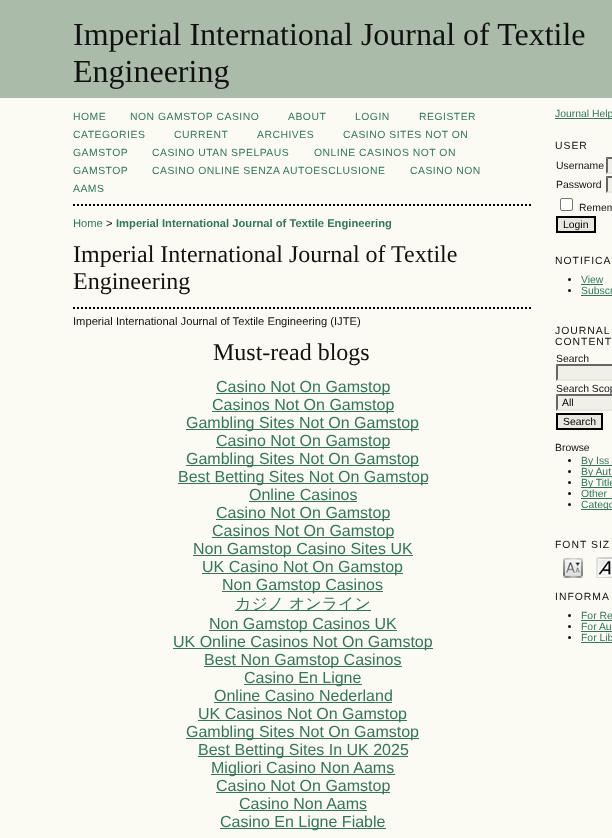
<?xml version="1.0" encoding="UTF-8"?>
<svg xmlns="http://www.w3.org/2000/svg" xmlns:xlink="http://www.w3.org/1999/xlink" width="612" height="838">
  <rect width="100%" height="100%" fill="#fbfbf3" />
  <rect width="612" height="98" fill="#aabbaa" />
  <path d="M 73 205 h 460" fill="none" stroke="#000000" stroke-width="2" stroke-dasharray="2 2" />
  <path d="M 73 308 h 460" fill="none" stroke="#000000" stroke-width="2" stroke-dasharray="2 2" />
  <rect x="216" y="393" width="174" height="1" fill="#337755" />
  <rect x="212" y="411" width="182" height="1" fill="#337755" />
  <rect x="186" y="429" width="233" height="1" fill="#337755" />
  <rect x="216" y="447" width="174" height="1" fill="#337755" />
  <rect x="186" y="465" width="233" height="1" fill="#337755" />
  <rect x="178" y="483" width="250" height="1" fill="#337755" />
  <rect x="249" y="501" width="108" height="1" fill="#337755" />
  <rect x="216" y="519" width="174" height="1" fill="#337755" />
  <rect x="212" y="537" width="182" height="1" fill="#337755" />
  <rect x="193" y="555" width="220" height="1" fill="#337755" />
  <rect x="202" y="573" width="201" height="1" fill="#337755" />
  <rect x="222" y="591" width="161" height="1" fill="#337755" />
  <rect x="235" y="610" width="136" height="1" fill="#337755" />
  <rect x="209" y="630" width="188" height="1" fill="#337755" />
  <rect x="173" y="648" width="260" height="1" fill="#337755" />
  <rect x="204" y="666" width="198" height="1" fill="#337755" />
  <rect x="244" y="684" width="118" height="1" fill="#337755" />
  <rect x="214" y="702" width="178" height="1" fill="#337755" />
  <rect x="198" y="720" width="209" height="1" fill="#337755" />
  <rect x="186" y="738" width="233" height="1" fill="#337755" />
  <rect x="198" y="756" width="210" height="1" fill="#337755" />
  <rect x="211" y="774" width="184" height="1" fill="#337755" />
  <rect x="216" y="792" width="174" height="1" fill="#337755" />
  <rect x="239" y="810" width="128" height="1" fill="#337755" />
  <rect x="220" y="828" width="166" height="1" fill="#337755" />
  <rect x="555" y="118" width="57" height="1" fill="#337755" />
  <rect x="606" y="157" width="6" height="17" fill="#f0f0e8" />
  <path d="M 606 157 h 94 l -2 2 h -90 z" fill="#666666" />
  <path d="M 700 174 h -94 l 2 -2 h 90 z" fill="#e8e8e1" />
  <path d="M 606 174 v -17 l 2 2 v 13 z" fill="#666666" />
  <rect x="606" y="176" width="6" height="17" fill="#f0f0e8" />
  <path d="M 606 176 h 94 l -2 2 h -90 z" fill="#666666" />
  <path d="M 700 193 h -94 l 2 -2 h 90 z" fill="#e8e8e1" />
  <path d="M 606 193 v -17 l 2 2 v 13 z" fill="#666666" />
  <rect x="560.5" y="198.5" width="12" height="12" rx="1.5" fill="#ffffff" stroke="#767676" />
  <rect x="557" y="217" width="38" height="15" fill="#e8e8e1" stroke="#000000" stroke-width="2" />
  <circle cx="569.5" cy="279.5" r="1.5" fill="#111111" />
  <rect x="581" y="284" width="22" height="1" fill="#337755" />
  <circle cx="569.5" cy="290.5" r="1.5" fill="#111111" />
  <rect x="581" y="295" width="31" height="1" fill="#337755" />
  <rect x="556" y="364" width="56" height="17" fill="#f0f0e8" />
  <path d="M 556 364 h 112 l -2 2 h -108 z" fill="#666666" />
  <path d="M 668 381 h -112 l 2 -2 h 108 z" fill="#e8e8e1" />
  <path d="M 556 381 v -17 l 2 2 v 13 z" fill="#666666" />
  <rect x="557" y="414" width="45" height="15" fill="#e8e8e1" stroke="#000000" stroke-width="2" />
  <circle cx="569.5" cy="460.5" r="1.5" fill="#111111" />
  <rect x="581" y="465" width="31" height="1" fill="#337755" />
  <circle cx="569.5" cy="471.5" r="1.5" fill="#111111" />
  <rect x="581" y="476" width="31" height="1" fill="#337755" />
  <circle cx="569.5" cy="482.5" r="1.5" fill="#111111" />
  <rect x="581" y="487" width="31" height="1" fill="#337755" />
  <circle cx="569.5" cy="493.5" r="1.5" fill="#111111" />
  <rect x="581" y="498" width="31" height="1" fill="#337755" />
  <circle cx="569.5" cy="504.5" r="1.5" fill="#111111" />
  <rect x="581" y="509" width="31" height="1" fill="#337755" />
  <image x="563" y="558" width="20" height="20" xlink:href="image1.png" />
  <image x="596" y="557" width="16" height="21" xlink:href="image2.png" />
  <circle cx="569.5" cy="615.5" r="1.5" fill="#111111" />
  <rect x="581" y="620" width="31" height="1" fill="#337755" />
  <circle cx="569.5" cy="626.5" r="1.5" fill="#111111" />
  <rect x="581" y="631" width="31" height="1" fill="#337755" />
  <circle cx="569.5" cy="637.5" r="1.5" fill="#111111" />
  <rect x="581" y="642" width="31" height="1" fill="#337755" />
  <text x="73" y="45" style="font-family: Liberation Serif; font-size: 32px; fill: #111111">Imperial International Journal of Textile</text>
  <text x="73" y="82" style="font-family: Liberation Serif; font-size: 32px; fill: #111111">Engineering</text>
  <text x="73" y="120" style="font-family: Liberation Sans; font-size: 10.4px; letter-spacing: 0.5px; fill: #337755">HOME</text>
  <text x="130" y="120" style="font-family: Liberation Sans; font-size: 10.4px; letter-spacing: 0.5px; fill: #337755">NON GAMSTOP CASINO</text>
  <text x="288" y="120" style="font-family: Liberation Sans; font-size: 10.4px; letter-spacing: 0.5px; fill: #337755">ABOUT</text>
  <text x="355" y="120" style="font-family: Liberation Sans; font-size: 10.4px; letter-spacing: 0.5px; fill: #337755">LOGIN</text>
  <text x="419" y="120" style="font-family: Liberation Sans; font-size: 10.4px; letter-spacing: 0.5px; fill: #337755">REGISTER</text>
  <text x="73" y="138" style="font-family: Liberation Sans; font-size: 10.4px; letter-spacing: 0.5px; fill: #337755">CATEGORIES</text>
  <text x="174" y="138" style="font-family: Liberation Sans; font-size: 10.4px; letter-spacing: 0.5px; fill: #337755">CURRENT</text>
  <text x="257" y="138" style="font-family: Liberation Sans; font-size: 10.4px; letter-spacing: 0.5px; fill: #337755">ARCHIVES</text>
  <text x="343" y="138" style="font-family: Liberation Sans; font-size: 10.4px; letter-spacing: 0.5px; fill: #337755">CASINO SITES NOT ON</text>
  <text x="73" y="156" style="font-family: Liberation Sans; font-size: 10.4px; letter-spacing: 0.5px; fill: #337755">GAMSTOP</text>
  <text x="152" y="156" style="font-family: Liberation Sans; font-size: 10.4px; letter-spacing: 0.5px; fill: #337755">CASINO UTAN SPELPAUS</text>
  <text x="314" y="156" style="font-family: Liberation Sans; font-size: 10.4px; letter-spacing: 0.5px; fill: #337755">ONLINE CASINOS NOT ON</text>
  <text x="73" y="174" style="font-family: Liberation Sans; font-size: 10.4px; letter-spacing: 0.5px; fill: #337755">GAMSTOP</text>
  <text x="152" y="174" style="font-family: Liberation Sans; font-size: 10.4px; letter-spacing: 0.5px; fill: #337755">CASINO ONLINE SENZA AUTOESCLUSIONE</text>
  <text x="410" y="174" style="font-family: Liberation Sans; font-size: 10.4px; letter-spacing: 0.5px; fill: #337755">CASINO NON</text>
  <text x="73" y="192" style="font-family: Liberation Sans; font-size: 10.4px; letter-spacing: 0.5px; fill: #337755">AAMS</text>
  <text x="73" y="227" style="font-family: Liberation Sans; font-size: 11.2px; fill: #337755">Home</text>
  <text x="106" y="227" style="font-family: Liberation Sans; font-size: 11.2px; fill: #111111">&gt;</text>
  <text x="116" y="227" style="font-family: Liberation Sans; font-size: 11.2px; font-weight: bold; fill: #337755">Imperial International Journal of Textile Engineering</text>
  <text x="73" y="262" style="font-family: Liberation Serif; font-size: 24px; fill: #111111">Imperial International Journal of Textile</text>
  <text x="73" y="289" style="font-family: Liberation Serif; font-size: 24px; fill: #111111">Engineering</text>
  <text x="73" y="325" style="font-family: Liberation Sans; font-size: 11.2px; fill: #111111">Imperial International Journal of Textile Engineering (IJTE)</text>
  <text x="213" y="360" style="font-family: Liberation Serif; font-size: 24px; fill: #111111">Must-read blogs</text>
  <text x="216" y="392" style="font-family: Liberation Sans; font-size: 16px; fill: #337755">Casino Not On Gamstop</text>
  <text x="212" y="410" style="font-family: Liberation Sans; font-size: 16px; fill: #337755">Casinos Not On Gamstop</text>
  <text x="186" y="428" style="font-family: Liberation Sans; font-size: 16px; fill: #337755">Gambling Sites Not On Gamstop</text>
  <text x="216" y="446" style="font-family: Liberation Sans; font-size: 16px; fill: #337755">Casino Not On Gamstop</text>
  <text x="186" y="464" style="font-family: Liberation Sans; font-size: 16px; fill: #337755">Gambling Sites Not On Gamstop</text>
  <text x="178" y="482" style="font-family: Liberation Sans; font-size: 16px; fill: #337755">Best Betting Sites Not On Gamstop</text>
  <text x="249" y="500" style="font-family: Liberation Sans; font-size: 16px; fill: #337755">Online Casinos</text>
  <text x="216" y="518" style="font-family: Liberation Sans; font-size: 16px; fill: #337755">Casino Not On Gamstop</text>
  <text x="212" y="536" style="font-family: Liberation Sans; font-size: 16px; fill: #337755">Casinos Not On Gamstop</text>
  <text x="193" y="554" style="font-family: Liberation Sans; font-size: 16px; fill: #337755">Non Gamstop Casino Sites UK</text>
  <text x="202" y="572" style="font-family: Liberation Sans; font-size: 16px; fill: #337755">UK Casino Not On Gamstop</text>
  <text x="222" y="590" style="font-family: Liberation Sans; font-size: 16px; fill: #337755">Non Gamstop Casinos</text>
  <text x="235" y="609" style="font-family: WenQuanYi Zen Hei; font-size: 16px; font-weight: 500; fill: #337755">カジノ オンライン</text>
  <text x="209" y="629" style="font-family: Liberation Sans; font-size: 16px; fill: #337755">Non Gamstop Casinos UK</text>
  <text x="173" y="647" style="font-family: Liberation Sans; font-size: 16px; fill: #337755">UK Online Casinos Not On Gamstop</text>
  <text x="204" y="665" style="font-family: Liberation Sans; font-size: 16px; fill: #337755">Best Non Gamstop Casinos</text>
  <text x="244" y="683" style="font-family: Liberation Sans; font-size: 16px; fill: #337755">Casino En Ligne</text>
  <text x="214" y="701" style="font-family: Liberation Sans; font-size: 16px; fill: #337755">Online Casino Nederland</text>
  <text x="198" y="719" style="font-family: Liberation Sans; font-size: 16px; fill: #337755">UK Casinos Not On Gamstop</text>
  <text x="186" y="737" style="font-family: Liberation Sans; font-size: 16px; fill: #337755">Gambling Sites Not On Gamstop</text>
  <text x="198" y="755" style="font-family: Liberation Sans; font-size: 16px; fill: #337755">Best Betting Sites In UK 2025</text>
  <text x="211" y="773" style="font-family: Liberation Sans; font-size: 16px; fill: #337755">Migliori Casino Non Aams</text>
  <text x="216" y="791" style="font-family: Liberation Sans; font-size: 16px; fill: #337755">Casino Not On Gamstop</text>
  <text x="239" y="809" style="font-family: Liberation Sans; font-size: 16px; fill: #337755">Casino Non Aams</text>
  <text x="220" y="827" style="font-family: Liberation Sans; font-size: 16px; fill: #337755">Casino En Ligne Fiable</text>
  <text x="555" y="117" style="font-family: Liberation Sans; font-size: 10.4px; fill: #337755">Journal Help</text>
  <text x="555" y="149" style="font-family: Liberation Sans; font-size: 10.4px; letter-spacing: 1px; fill: #111111">USER</text>
  <text x="556" y="169" style="font-family: Liberation Sans; font-size: 10.4px; fill: #111111">Username</text>
  <text x="556" y="188" style="font-family: Liberation Sans; font-size: 10.4px; fill: #111111">Password</text>
  <text x="579" y="211" style="font-family: Liberation Sans; font-size: 10.4px; fill: #111111">Remem</text>
  <text x="563" y="228" style="font-family: Liberation Sans; font-size: 10.4px; fill: #000000">Login</text>
  <text x="555" y="264" style="font-family: Liberation Sans; font-size: 10.4px; letter-spacing: 1px; fill: #111111">NOTIFICA</text>
  <text x="581" y="283" style="font-family: Liberation Sans; font-size: 10.4px; fill: #337755">View</text>
  <text x="581" y="294" style="font-family: Liberation Sans; font-size: 10.4px; fill: #337755">Subscr</text>
  <text x="555" y="334" style="font-family: Liberation Sans; font-size: 10.4px; letter-spacing: 1px; fill: #111111">JOURNAL</text>
  <text x="555" y="345" style="font-family: Liberation Sans; font-size: 10.4px; letter-spacing: 1px; fill: #111111">CONTENT</text>
  <text x="556" y="362" style="font-family: Liberation Sans; font-size: 10.4px; fill: #111111">Search</text>
  <text x="556" y="392" style="font-family: Liberation Sans; font-size: 10.4px; fill: #111111">Search Scop</text>
  <rect x="556" y="394" width="56" height="17" fill="#f0f0e8" />
  <path d="M 556 394 h 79 l -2 2 h -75 z" fill="#666666" />
  <path d="M 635 411 h -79 l 2 -2 h 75 z" fill="#e8e8e1" />
  <path d="M 556 411 v -17 l 2 2 v 13 z" fill="#666666" />
  <text x="562" y="406" style="font-family: Liberation Sans; font-size: 10.4px; fill: #000000">All</text>
  <text x="563" y="425" style="font-family: Liberation Sans; font-size: 10.4px; fill: #000000">Search</text>
  <text x="555" y="451" style="font-family: Liberation Sans; font-size: 10.4px; fill: #111111">Browse</text>
  <text x="581" y="464" style="font-family: Liberation Sans; font-size: 10.4px; fill: #337755">By Iss</text>
  <text x="581" y="475" style="font-family: Liberation Sans; font-size: 10.4px; fill: #337755">By Aut</text>
  <text x="581" y="486" style="font-family: Liberation Sans; font-size: 10.4px; fill: #337755">By Title</text>
  <text x="581" y="497" style="font-family: Liberation Sans; font-size: 10.4px; fill: #337755">Other</text>
  <text x="581" y="508" style="font-family: Liberation Sans; font-size: 10.4px; fill: #337755">Catego</text>
  <text x="555" y="548" style="font-family: Liberation Sans; font-size: 10.4px; letter-spacing: 1px; fill: #111111">FONT SIZ</text>
  <text x="555" y="600" style="font-family: Liberation Sans; font-size: 10.4px; letter-spacing: 1px; fill: #111111">INFORMA</text>
  <text x="581" y="619" style="font-family: Liberation Sans; font-size: 10.4px; fill: #337755">For Re</text>
  <text x="581" y="630" style="font-family: Liberation Sans; font-size: 10.4px; fill: #337755">For Au</text>
  <text x="581" y="641" style="font-family: Liberation Sans; font-size: 10.4px; fill: #337755">For Lib</text>
</svg>
